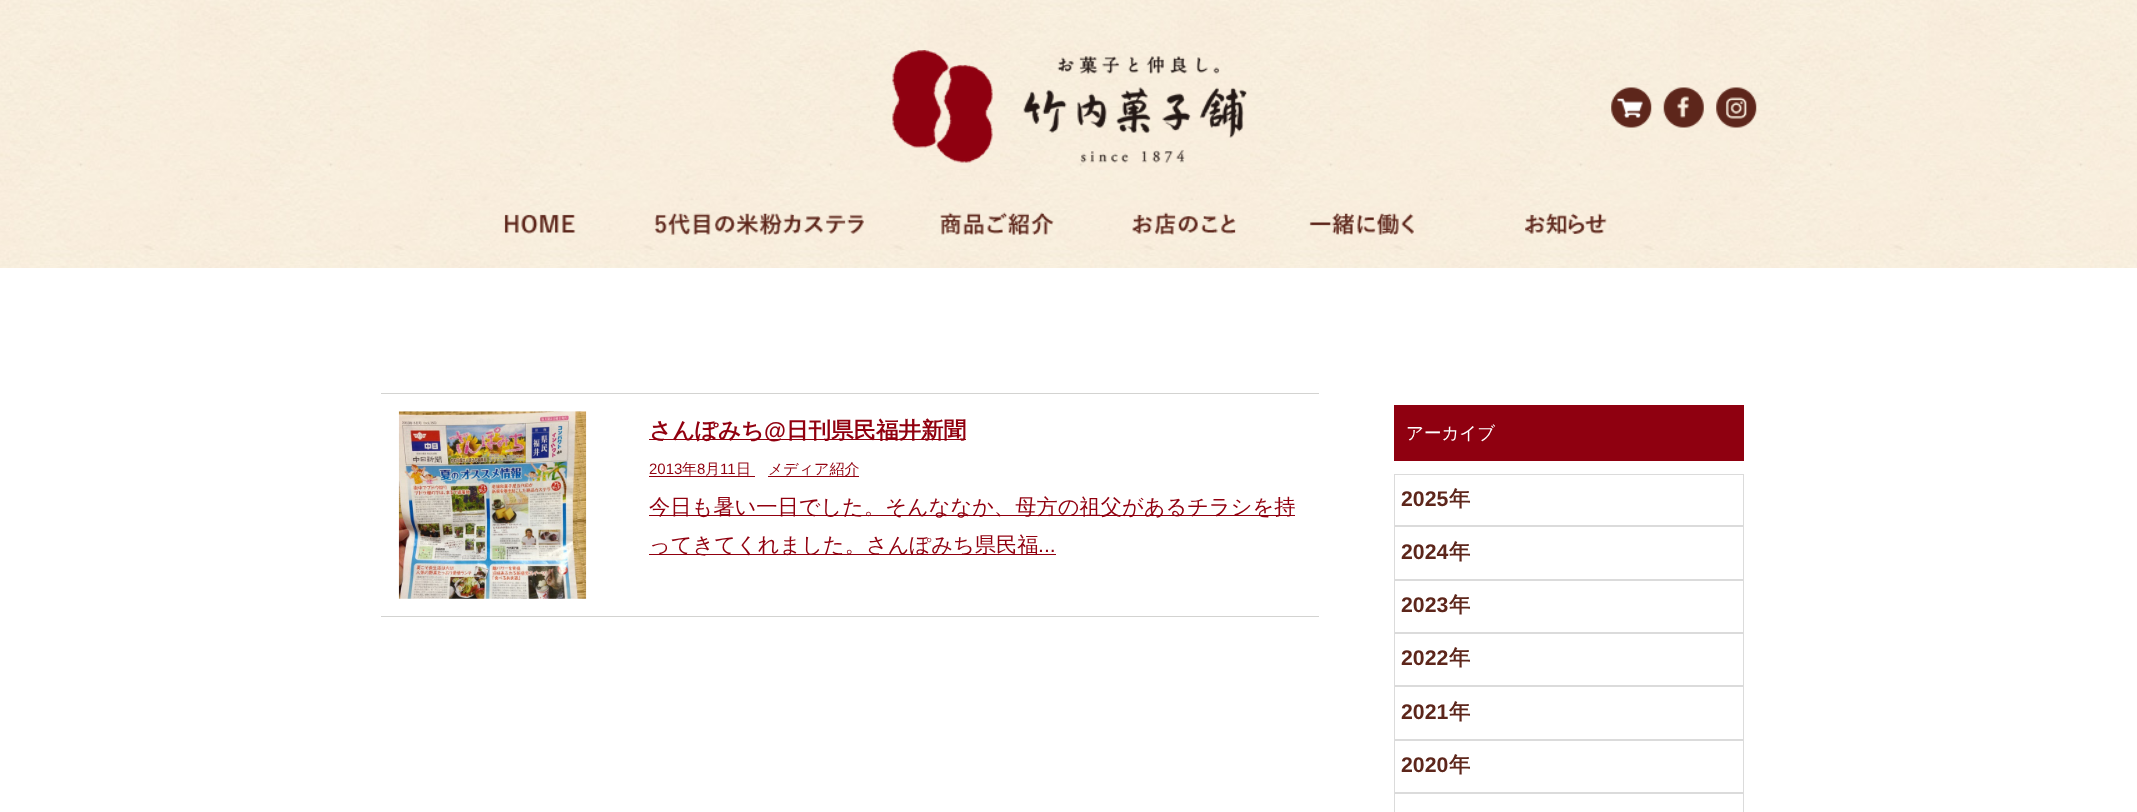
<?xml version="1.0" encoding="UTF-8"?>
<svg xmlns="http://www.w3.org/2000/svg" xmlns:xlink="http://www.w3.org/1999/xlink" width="2137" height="812">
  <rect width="100%" height="100%" fill="#ffffff" />
  <image x="0" y="0" width="2137" height="268" xlink:href="image1.png" />
  <image x="892" y="50" width="355" height="113" xlink:href="image2.png" />
  <image x="1611" y="87" width="41" height="41" xlink:href="image3.png" />
  <image x="1663" y="87" width="41" height="41" xlink:href="image4.png" />
  <image x="1716" y="87" width="41" height="41" xlink:href="image5.png" />
  <image x="504" y="214" width="72" height="20" xlink:href="image6.png" />
  <image x="654" y="213" width="210" height="22" xlink:href="image7.png" />
  <image x="940" y="212" width="114" height="23" xlink:href="image8.png" />
  <image x="1132" y="212" width="104" height="23" xlink:href="image9.png" />
  <image x="1309" y="212" width="105" height="23" xlink:href="image10.png" />
  <image x="1525" y="213" width="82" height="21" xlink:href="image11.png" />
  <rect x="381" y="616" width="938" height="1" fill="#d3d3d1" />
  <rect x="381" y="393" width="938" height="1" fill="#d3d3d1" />
  <image x="398" y="411" width="189" height="188" xlink:href="image12.png" />
  <rect x="649" y="439" width="317" height="1" fill="#91000f" />
  <rect x="649" y="476" width="106" height="1" fill="#91000f" />
  <rect x="768" y="476" width="91" height="1" fill="#91000f" />
  <rect x="649" y="515" width="646" height="1" fill="#91000f" />
  <rect x="649" y="554" width="407" height="1" fill="#91000f" />
  <rect x="1394" y="405" width="350" height="56" fill="#8f0010" />
  <rect x="1394.5" y="474.5" width="349" height="51" fill="none" stroke="#dbdbdb" />
  <rect x="1394.5" y="526.5" width="349" height="53" fill="none" stroke="#dbdbdb" />
  <rect x="1394.5" y="580.5" width="349" height="52" fill="none" stroke="#dbdbdb" />
  <rect x="1394.5" y="633.5" width="349" height="52" fill="none" stroke="#dbdbdb" />
  <rect x="1394.5" y="686.5" width="349" height="53" fill="none" stroke="#dbdbdb" />
  <rect x="1394.5" y="740.5" width="349" height="52" fill="none" stroke="#dbdbdb" />
  <rect x="1394.5" y="793.5" width="349" height="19" fill="none" stroke="#dbdbdb" />
  <text x="649" y="438" style="font-family: WenQuanYi Zen Hei; font-size: 22.5px; font-weight: bold; fill: #91000f">さんぽみち</text>
  <text x="764" y="438" style="font-family: Liberation Sans; font-size: 22.5px; font-weight: bold; fill: #91000f">@</text>
  <text x="786" y="438" style="font-family: WenQuanYi Zen Hei; font-size: 22.5px; font-weight: bold; fill: #91000f">日刊県民福井新聞</text>
  <text x="649" y="474" style="font-family: Liberation Sans; font-size: 15px; fill: #91000f">2013</text>
  <text x="682" y="474" style="font-family: WenQuanYi Zen Hei; font-size: 15px; font-weight: 500; fill: #91000f">年</text>
  <text x="697" y="474" style="font-family: Liberation Sans; font-size: 15px; fill: #91000f">8</text>
  <text x="705" y="474" style="font-family: WenQuanYi Zen Hei; font-size: 15px; font-weight: 500; fill: #91000f">月</text>
  <text x="720" y="474" style="font-family: Liberation Sans; font-size: 15px; fill: #91000f">11</text>
  <text x="736" y="474" style="font-family: WenQuanYi Zen Hei; font-size: 15px; font-weight: 500; fill: #91000f">日</text>
  <text x="768" y="474" style="font-family: WenQuanYi Zen Hei; font-size: 15px; font-weight: 500; fill: #91000f">メディア紹介</text>
  <text x="649" y="514" style="font-family: WenQuanYi Zen Hei; font-size: 21.25px; font-weight: 500; fill: #91000f">今日も暑い一日でした。そんななか、母方の祖父があるチラシを持</text>
  <text x="649" y="552" style="font-family: WenQuanYi Zen Hei; font-size: 21.25px; font-weight: 500; fill: #91000f">ってきてくれました。さんぽみち県民福</text>
  <text x="1038" y="552" style="font-family: Liberation Sans; font-size: 21.25px; fill: #91000f">...</text>
  <text x="1406" y="439" style="font-family: WenQuanYi Zen Hei; font-size: 17.5px; font-weight: 500; fill: #ffffff">アーカイブ</text>
  <text x="1401" y="506" style="font-family: Liberation Sans; font-size: 21.25px; font-weight: bold; fill: #5d261b">2025</text>
  <text x="1449" y="506" style="font-family: WenQuanYi Zen Hei; font-size: 21.25px; font-weight: bold; fill: #5d261b">年</text>
  <text x="1401" y="559" style="font-family: Liberation Sans; font-size: 21.25px; font-weight: bold; fill: #5d261b">2024</text>
  <text x="1449" y="559" style="font-family: WenQuanYi Zen Hei; font-size: 21.25px; font-weight: bold; fill: #5d261b">年</text>
  <text x="1401" y="612" style="font-family: Liberation Sans; font-size: 21.25px; font-weight: bold; fill: #5d261b">2023</text>
  <text x="1449" y="612" style="font-family: WenQuanYi Zen Hei; font-size: 21.25px; font-weight: bold; fill: #5d261b">年</text>
  <text x="1401" y="665" style="font-family: Liberation Sans; font-size: 21.25px; font-weight: bold; fill: #5d261b">2022</text>
  <text x="1449" y="665" style="font-family: WenQuanYi Zen Hei; font-size: 21.25px; font-weight: bold; fill: #5d261b">年</text>
  <text x="1401" y="719" style="font-family: Liberation Sans; font-size: 21.25px; font-weight: bold; fill: #5d261b">2021</text>
  <text x="1449" y="719" style="font-family: WenQuanYi Zen Hei; font-size: 21.25px; font-weight: bold; fill: #5d261b">年</text>
  <text x="1401" y="772" style="font-family: Liberation Sans; font-size: 21.25px; font-weight: bold; fill: #5d261b">2020</text>
  <text x="1449" y="772" style="font-family: WenQuanYi Zen Hei; font-size: 21.25px; font-weight: bold; fill: #5d261b">年</text>
</svg>
